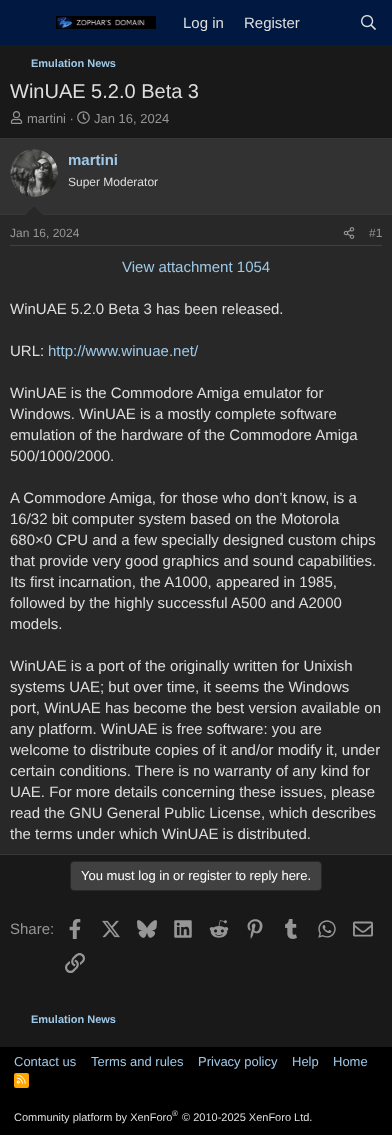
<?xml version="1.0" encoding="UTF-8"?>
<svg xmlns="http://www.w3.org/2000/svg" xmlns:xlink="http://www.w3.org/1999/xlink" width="392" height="1135">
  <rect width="100%" height="100%" fill="#191919" />
  <rect width="392" height="45" fill="#011940" />
  <image x="56" y="16" width="100" height="13" xlink:href="image1.png" />
  <image x="361" y="15" width="15" height="15" xlink:href="image2.png" />
  <image x="10" y="111" width="13" height="13" xlink:href="image3.png" />
  <image x="77" y="111" width="13" height="13" xlink:href="image4.png" />
  <rect y="215" width="392" height="639" fill="#282828" />
  <rect y="138" width="392" height="1" fill="#373737" />
  <rect y="854" width="392" height="1" fill="#373737" />
  <rect y="139" width="392" height="75" fill="#323232" />
  <rect y="214" width="392" height="1" fill="#373737" />
  <image x="10" y="149" width="48" height="48" xlink:href="image5.png" />
  <path d="M 44 215 h -20 l 10 -10 z" fill="#373737" />
  <path d="M 43 215 h -18 l 9 -9 z" fill="#282828" />
  <rect x="10" y="245" width="372" height="1" fill="#414141" />
  <image x="343" y="227" width="12" height="12" xlink:href="image6.png" />
  <rect x="70.5" y="861.5" width="251" height="29" rx="3.5" fill="#414141" stroke="#282828" />
  <image x="69" y="919" width="12" height="20" xlink:href="image7.png" />
  <image x="102" y="920" width="18" height="18" xlink:href="image8.png" />
  <image x="137" y="920" width="20" height="18" xlink:href="image9.png" />
  <image x="174" y="920" width="18" height="18" xlink:href="image10.png" />
  <image x="209" y="920" width="20" height="18" xlink:href="image11.png" />
  <image x="247" y="919" width="16" height="20" xlink:href="image12.png" />
  <image x="285" y="919" width="12" height="20" xlink:href="image13.png" />
  <image x="318" y="920" width="18" height="18" xlink:href="image14.png" />
  <image x="353" y="921" width="20" height="16" xlink:href="image15.png" />
  <image x="65" y="953" width="20" height="20" xlink:href="image16.png" />
  <rect y="1047" width="392" height="88" fill="#000000" />
  <rect x="14" y="1073" width="15" height="15" rx="2" fill="#ffa500" />
  <image x="16" y="1074" width="10" height="10" xlink:href="image17.png" />
  <text x="183" y="28" style="font-family: Liberation Sans; font-size: 15px; fill: #dedede">Log in</text>
  <text x="244" y="28" style="font-family: Liberation Sans; font-size: 15px; fill: #dedede">Register</text>
  <text x="31" y="67" style="font-family: Liberation Sans; font-size: 11px; font-weight: bold; fill: #9fc9e7">Emulation News</text>
  <text x="10" y="98" style="font-family: Liberation Sans; font-size: 20px; fill: #dedede">WinUAE 5.2.0 Beta 3</text>
  <text x="27" y="123" style="font-family: Liberation Sans; font-size: 13px; fill: #969696">martini ·</text>
  <text x="94" y="123" style="font-family: Liberation Sans; font-size: 13px; fill: #969696">Jan 16, 2024</text>
  <text x="68" y="165" style="font-family: Liberation Sans; font-size: 15px; font-weight: bold; fill: #9fc9e7">martini</text>
  <text x="68" y="186" style="font-family: Liberation Sans; font-size: 12px; fill: #dedede">Super Moderator</text>
  <text x="10" y="237" style="font-family: Liberation Sans; font-size: 12px; fill: #969696">Jan 16, 2024</text>
  <text x="369" y="237" style="font-family: Liberation Sans; font-size: 12px; fill: #969696">#1</text>
  <text x="122" y="272" style="font-family: Liberation Sans; font-size: 15px; fill: #9fc9e7">View attachment 1054</text>
  <text x="10" y="314" style="font-family: Liberation Sans; font-size: 15px; fill: #dedede">WinUAE 5.2.0 Beta 3 has been released.</text>
  <text x="10" y="356" style="font-family: Liberation Sans; font-size: 15px; fill: #dedede">URL:</text>
  <text x="48" y="356" style="font-family: Liberation Sans; font-size: 15px; fill: #9fc9e7">http://www.winuae.net/</text>
  <text x="10" y="398" style="font-family: Liberation Sans; font-size: 15px; fill: #dedede">WinUAE is the Commodore Amiga emulator for</text>
  <text x="10" y="419" style="font-family: Liberation Sans; font-size: 15px; fill: #dedede">Windows. WinUAE is a mostly complete software</text>
  <text x="10" y="440" style="font-family: Liberation Sans; font-size: 15px; fill: #dedede">emulation of the hardware of the Commodore Amiga</text>
  <text x="10" y="461" style="font-family: Liberation Sans; font-size: 15px; fill: #dedede">500/1000/2000.</text>
  <text x="10" y="503" style="font-family: Liberation Sans; font-size: 15px; fill: #dedede">A Commodore Amiga, for those who don’t know, is a</text>
  <text x="10" y="524" style="font-family: Liberation Sans; font-size: 15px; fill: #dedede">16/32 bit computer system based on the Motorola</text>
  <text x="10" y="545" style="font-family: Liberation Sans; font-size: 15px; fill: #dedede">680×0 CPU and a few specially designed custom chips</text>
  <text x="10" y="566" style="font-family: Liberation Sans; font-size: 15px; fill: #dedede">that provide very good graphics and sound capabilities.</text>
  <text x="10" y="587" style="font-family: Liberation Sans; font-size: 15px; fill: #dedede">Its first incarnation, the A1000, appeared in 1985,</text>
  <text x="10" y="608" style="font-family: Liberation Sans; font-size: 15px; fill: #dedede">followed by the highly successful A500 and A2000</text>
  <text x="10" y="629" style="font-family: Liberation Sans; font-size: 15px; fill: #dedede">models.</text>
  <text x="10" y="671" style="font-family: Liberation Sans; font-size: 15px; fill: #dedede">WinUAE is a port of the originally written for Unixish</text>
  <text x="10" y="692" style="font-family: Liberation Sans; font-size: 15px; fill: #dedede">systems UAE; but over time, it seems the Windows</text>
  <text x="10" y="713" style="font-family: Liberation Sans; font-size: 15px; fill: #dedede">port, WinUAE has become the best version available on</text>
  <text x="10" y="734" style="font-family: Liberation Sans; font-size: 15px; fill: #dedede">any platform. WinUAE is free software: you are</text>
  <text x="10" y="755" style="font-family: Liberation Sans; font-size: 15px; fill: #dedede">welcome to distribute copies of it and/or modify it, under</text>
  <text x="10" y="776" style="font-family: Liberation Sans; font-size: 15px; fill: #dedede">certain conditions. There is no warranty of any kind for</text>
  <text x="10" y="797" style="font-family: Liberation Sans; font-size: 15px; fill: #dedede">UAE. For more details concerning these issues, please</text>
  <text x="10" y="818" style="font-family: Liberation Sans; font-size: 15px; fill: #dedede">read the GNU General Public License, which describes</text>
  <text x="10" y="839" style="font-family: Liberation Sans; font-size: 15px; fill: #dedede">the terms under which WinUAE is distributed.</text>
  <text x="81" y="880" style="font-family: Liberation Sans; font-size: 13px; fill: #ffffff">You must log in or register to reply here.</text>
  <text x="10" y="934" style="font-family: Liberation Sans; font-size: 15px; fill: #969696">Share:</text>
  <text x="31" y="1023" style="font-family: Liberation Sans; font-size: 11px; font-weight: bold; fill: #9fc9e7">Emulation News</text>
  <text x="14" y="1066" style="font-family: Liberation Sans; font-size: 13px; fill: #9fc9e7">Contact us</text>
  <text x="91" y="1066" style="font-family: Liberation Sans; font-size: 13px; fill: #9fc9e7">Terms and rules</text>
  <text x="198" y="1066" style="font-family: Liberation Sans; font-size: 13px; fill: #9fc9e7">Privacy policy</text>
  <text x="292" y="1066" style="font-family: Liberation Sans; font-size: 13px; fill: #9fc9e7">Help</text>
  <text x="333" y="1066" style="font-family: Liberation Sans; font-size: 13px; fill: #9fc9e7">Home</text>
  <text x="14" y="1121" style="font-family: Liberation Sans; font-size: 11px; fill: #dedede">Community platform by XenForo</text>
  <text x="172" y="1116" style="font-family: Liberation Sans; font-size: 8px; fill: #dedede">®</text>
  <text x="182" y="1121" style="font-family: Liberation Sans; font-size: 11px; fill: #dedede">© 2010-2025 XenForo Ltd.</text>
</svg>
